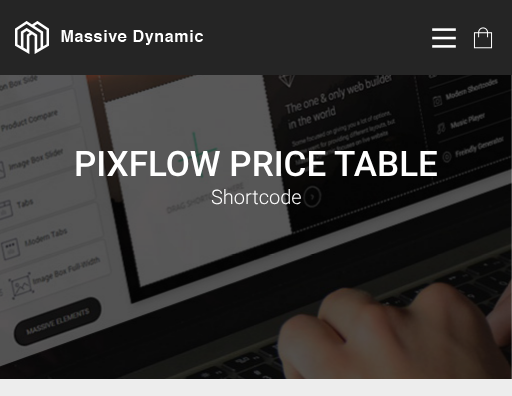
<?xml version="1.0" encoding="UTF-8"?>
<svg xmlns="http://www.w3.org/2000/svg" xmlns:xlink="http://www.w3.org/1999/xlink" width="512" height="396">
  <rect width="100%" height="100%" fill="#ffffff" />
  <rect width="512" height="75" fill="#252525" />
  <image x="15" y="21" width="188" height="33" xlink:href="image1.png" />
  <image x="432" y="28" width="24" height="20" xlink:href="image2.png" />
  <image x="473" y="27" width="20" height="22" xlink:href="image3.png" />
  <image x="0" y="75" width="512" height="304" xlink:href="image4.png" />
  <rect y="379" width="512" height="17" fill="#ededed" />
  <text x="74" y="176" style="font-family: Roboto; font-size: 35px; font-weight: 500; fill: #ffffff">PIXFLOW PRICE TABLE</text>
  <text x="211" y="204" style="font-family: Roboto; font-size: 20px; font-weight: 300; fill: #ffffff">Shortcode</text>
</svg>
